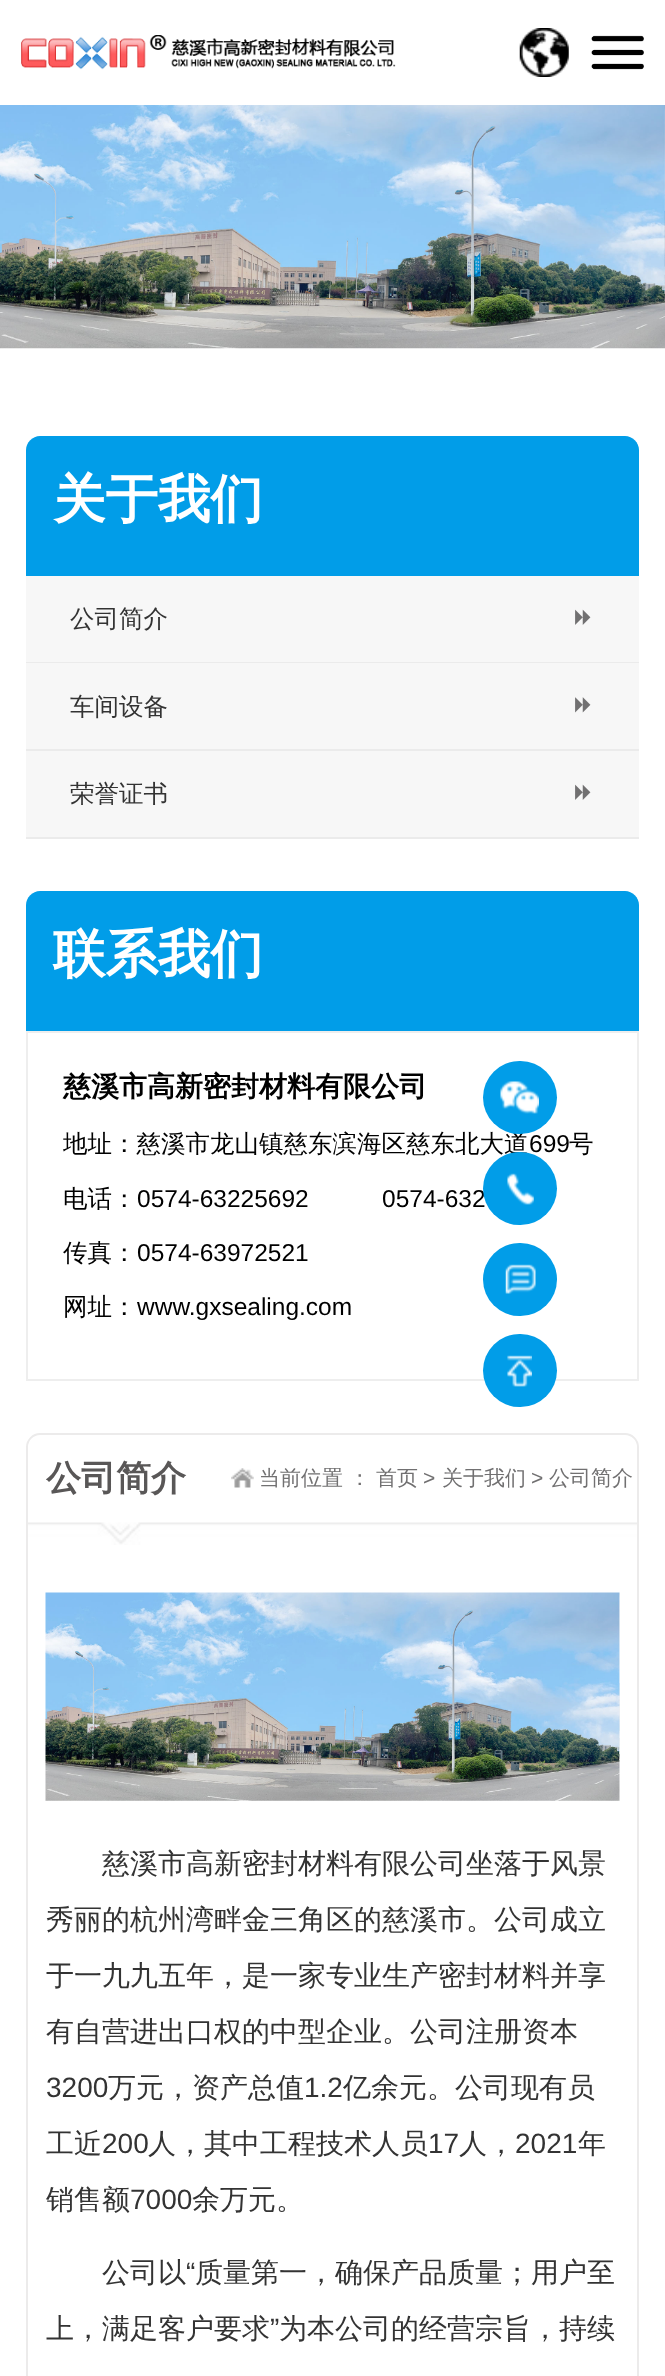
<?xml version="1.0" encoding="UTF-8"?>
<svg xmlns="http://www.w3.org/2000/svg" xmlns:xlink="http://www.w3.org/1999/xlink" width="665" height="2376">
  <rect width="100%" height="100%" fill="#ffffff" />
  <image x="21" y="35" width="375" height="35" xlink:href="image1.png" />
  <image x="519" y="28" width="50" height="49" xlink:href="image2.png" />
  <image x="591" y="35" width="53" height="35" xlink:href="image3.png" />
  <image x="0" y="105" width="665" height="244" xlink:href="image4.png" />
  <path d="M 40 436 h 585 c 7.5 0 14 6.5 14 14 v 126 h -613 v -126 c 0 -7.5 6.5 -14 14 -14 z" fill="#019de8" />
  <rect x="26" y="576" width="613" height="86" fill="#f7f7f7" />
  <rect x="26" y="662" width="613" height="1" fill="#ebebeb" />
  <image x="575" y="609" width="16" height="16" xlink:href="image5.png" />
  <rect x="26" y="663" width="613" height="86" fill="#f7f7f7" />
  <rect x="26" y="749" width="613" height="2" fill="#ebebeb" />
  <image x="575" y="697" width="16" height="16" xlink:href="image6.png" />
  <rect x="26" y="751" width="613" height="86" fill="#f7f7f7" />
  <rect x="26" y="837" width="613" height="2" fill="#ebebeb" />
  <image x="575" y="784" width="16" height="16" xlink:href="image5.png" />
  <path d="M 40 891 h 585 c 7.5 0 14 6.5 14 14 v 126 h -613 v -126 c 0 -7.5 6.5 -14 14 -14 z" fill="#019de8" />
  <rect x="27" y="1032" width="611" height="348" fill="none" stroke="#eeeeee" stroke-width="2" />
  <path d="M 40 1434 h 585 c 7 0 13 6 13 13 v 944 h -611 v -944 c 0 -7 6 -13 13 -13 z" fill="none" stroke="#ecebeb" stroke-width="2" />
  <image x="231" y="1468" width="23" height="20" xlink:href="image7.png" />
  <image x="28" y="1522" width="609" height="23" xlink:href="image8.png" />
  <image x="45" y="1592" width="575" height="209" xlink:href="image9.png" />
  <rect x="483" y="1243" width="74" height="73" rx="36.5" fill="#019de8" />
  <image x="505" y="1264" width="31" height="30" xlink:href="image12.png" />
  <rect x="483" y="1334" width="74" height="73" rx="36.5" fill="#019de8" />
  <image x="507" y="1355" width="25" height="32" xlink:href="image13.png" />
  <text x="53" y="517" style="font-family: WenQuanYi Zen Hei; font-size: 52.5px; font-weight: bold; fill: #ffffff">关于我们</text>
  <text x="70" y="627" style="font-family: WenQuanYi Zen Hei; font-size: 24.5px; font-weight: 500; fill: #333333">公司简介</text>
  <text x="70" y="715" style="font-family: WenQuanYi Zen Hei; font-size: 24.5px; font-weight: 500; fill: #333333">车间设备</text>
  <text x="70" y="802" style="font-family: WenQuanYi Zen Hei; font-size: 24.5px; font-weight: 500; fill: #333333">荣誉证书</text>
  <text x="53" y="972" style="font-family: WenQuanYi Zen Hei; font-size: 52.5px; font-weight: bold; fill: #ffffff">联系我们</text>
  <text x="63" y="1096" style="font-family: WenQuanYi Zen Hei; font-size: 28px; font-weight: bold; fill: #000000">慈溪市高新密封材料有限公司</text>
  <text x="63" y="1152" style="font-family: WenQuanYi Zen Hei; font-size: 24.5px; font-weight: 500; fill: #000000">地址：慈溪市龙山镇慈东滨海区慈东北大道</text>
  <text x="529" y="1152" style="font-family: Liberation Sans; font-size: 24.5px; fill: #000000">699</text>
  <text x="569" y="1152" style="font-family: WenQuanYi Zen Hei; font-size: 24.5px; font-weight: 500; fill: #000000">号</text>
  <text x="63" y="1207" style="font-family: WenQuanYi Zen Hei; font-size: 24.5px; font-weight: 500; fill: #000000">电话：</text>
  <text x="137" y="1207" style="font-family: Liberation Sans; font-size: 24.5px; fill: #000000">0574-63225692</text>
  <text x="382" y="1207" style="font-family: Liberation Sans; font-size: 24.5px; fill: #000000">0574-632</text>
  <text x="63" y="1261" style="font-family: WenQuanYi Zen Hei; font-size: 24.5px; font-weight: 500; fill: #000000">传真：</text>
  <text x="137" y="1261" style="font-family: Liberation Sans; font-size: 24.5px; fill: #000000">0574-63972521</text>
  <text x="63" y="1315" style="font-family: WenQuanYi Zen Hei; font-size: 24.5px; font-weight: 500; fill: #000000">网址：</text>
  <text x="137" y="1315" style="font-family: Liberation Sans; font-size: 24.5px; fill: #000000">www.gxsealing.com</text>
  <text x="46" y="1490" style="font-family: WenQuanYi Zen Hei; font-size: 35px; font-weight: bold; fill: #595757">公司简介</text>
  <text x="259" y="1485" style="font-family: WenQuanYi Zen Hei; font-size: 21px; font-weight: 500; fill: #717071">当前位置 ：</text>
  <text x="376" y="1485" style="font-family: WenQuanYi Zen Hei; font-size: 21px; font-weight: 500; fill: #717071">首页</text>
  <text x="423" y="1485" style="font-family: Liberation Sans; font-size: 21px; fill: #717071">&gt;</text>
  <text x="442" y="1485" style="font-family: WenQuanYi Zen Hei; font-size: 21px; font-weight: 500; fill: #717071">关于我们</text>
  <text x="531" y="1485" style="font-family: Liberation Sans; font-size: 21px; fill: #717071">&gt;</text>
  <text x="549" y="1485" style="font-family: WenQuanYi Zen Hei; font-size: 21px; font-weight: 500; fill: #717071">公司简介</text>
  <text x="102" y="1873" style="font-family: WenQuanYi Zen Hei; font-size: 28px; font-weight: 500; fill: #333333">慈溪市高新密封材料有限公司坐落于风景</text>
  <text x="46" y="1929" style="font-family: WenQuanYi Zen Hei; font-size: 28px; font-weight: 500; fill: #333333">秀丽的杭州湾畔金三角区的慈溪市。公司成立</text>
  <text x="46" y="1985" style="font-family: WenQuanYi Zen Hei; font-size: 28px; font-weight: 500; fill: #333333">于一九九五年，是一家专业生产密封材料并享</text>
  <text x="46" y="2041" style="font-family: WenQuanYi Zen Hei; font-size: 28px; font-weight: 500; fill: #333333">有自营进出口权的中型企业。公司注册资本</text>
  <text x="46" y="2097" style="font-family: Liberation Sans; font-size: 28px; fill: #333333">3200</text>
  <text x="108" y="2097" style="font-family: WenQuanYi Zen Hei; font-size: 28px; font-weight: 500; fill: #333333">万元，资产总值</text>
  <text x="304" y="2097" style="font-family: Liberation Sans; font-size: 28px; fill: #333333">1.2</text>
  <text x="343" y="2097" style="font-family: WenQuanYi Zen Hei; font-size: 28px; font-weight: 500; fill: #333333">亿余元。公司现有员</text>
  <text x="46" y="2153" style="font-family: WenQuanYi Zen Hei; font-size: 28px; font-weight: 500; fill: #333333">工近</text>
  <text x="102" y="2153" style="font-family: Liberation Sans; font-size: 28px; fill: #333333">200</text>
  <text x="148" y="2153" style="font-family: WenQuanYi Zen Hei; font-size: 28px; font-weight: 500; fill: #333333">人，其中工程技术人员</text>
  <text x="428" y="2153" style="font-family: Liberation Sans; font-size: 28px; fill: #333333">17</text>
  <text x="459" y="2153" style="font-family: WenQuanYi Zen Hei; font-size: 28px; font-weight: 500; fill: #333333">人，</text>
  <text x="515" y="2153" style="font-family: Liberation Sans; font-size: 28px; fill: #333333">2021</text>
  <text x="578" y="2153" style="font-family: WenQuanYi Zen Hei; font-size: 28px; font-weight: 500; fill: #333333">年</text>
  <text x="46" y="2209" style="font-family: WenQuanYi Zen Hei; font-size: 28px; font-weight: 500; fill: #333333">销售额</text>
  <text x="130" y="2209" style="font-family: Liberation Sans; font-size: 28px; fill: #333333">7000</text>
  <text x="192" y="2209" style="font-family: WenQuanYi Zen Hei; font-size: 28px; font-weight: 500; fill: #333333">余万元。</text>
  <text x="102" y="2282" style="font-family: WenQuanYi Zen Hei; font-size: 28px; font-weight: 500; fill: #333333">公司以</text>
  <text x="186" y="2282" style="font-family: Liberation Sans; font-size: 28px; fill: #333333">“</text>
  <text x="195" y="2282" style="font-family: WenQuanYi Zen Hei; font-size: 28px; font-weight: 500; fill: #333333">质量第一，确保产品质量；用户至</text>
  <text x="46" y="2338" style="font-family: WenQuanYi Zen Hei; font-size: 28px; font-weight: 500; fill: #333333">上，满足客户要求</text>
  <text x="270" y="2338" style="font-family: Liberation Sans; font-size: 28px; fill: #333333">”</text>
  <text x="279" y="2338" style="font-family: WenQuanYi Zen Hei; font-size: 28px; font-weight: 500; fill: #333333">为本公司的经营宗旨，持续</text>
  <rect x="483" y="1061" width="74" height="73" rx="36.5" fill="#019de8" />
  <image x="500" y="1081" width="39" height="33" xlink:href="image10.png" />
  <rect x="483" y="1152" width="74" height="73" rx="36.5" fill="#019de8" />
  <image x="507" y="1173" width="27" height="32" xlink:href="image11.png" />
</svg>
